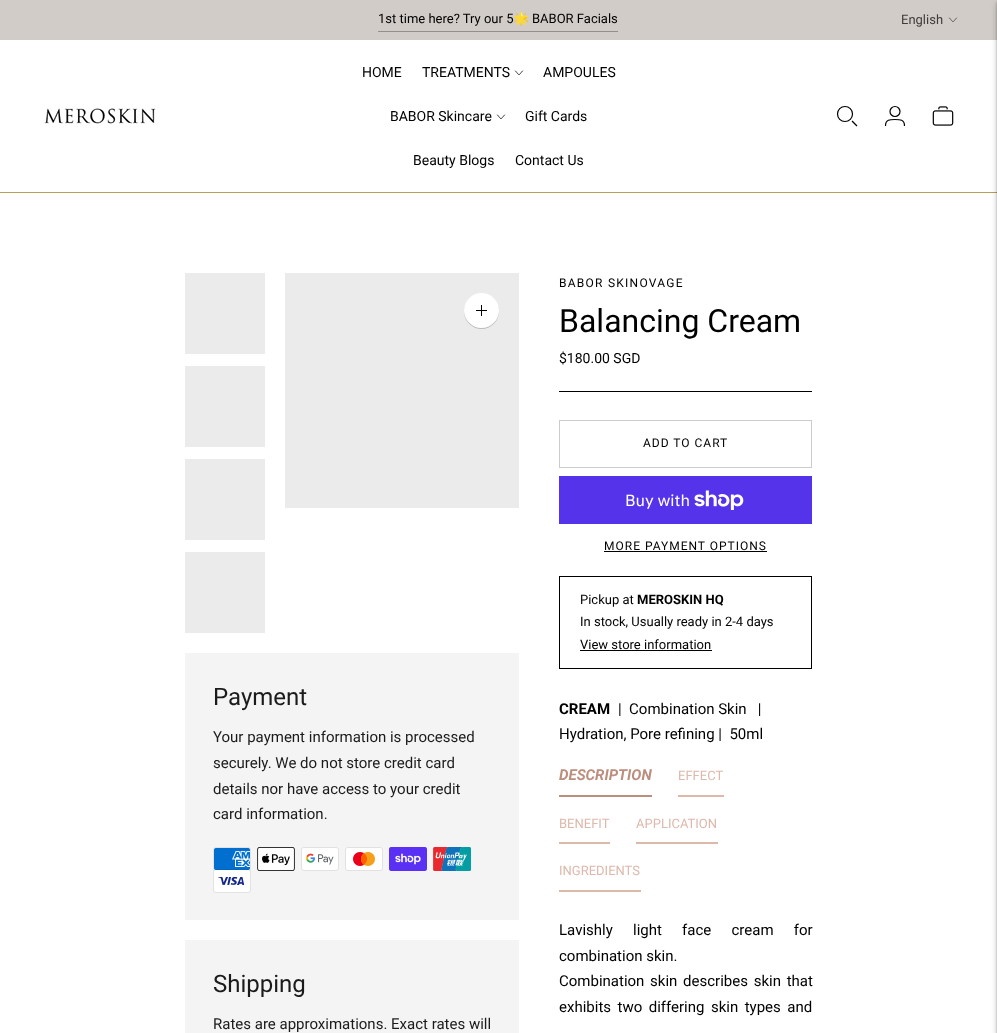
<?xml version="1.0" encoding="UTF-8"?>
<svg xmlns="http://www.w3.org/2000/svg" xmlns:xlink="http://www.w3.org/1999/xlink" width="997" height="1033">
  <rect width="100%" height="100%" fill="#ffffff" />
  <rect width="997" height="40" fill="#d2ccc8" />
  <rect x="378" y="31" width="240" height="1" fill="#938f8c" />
  <path d="M 949.5 18 c 4.5 5 2.5 5 7 0" fill="none" stroke="#3f3d3c" stroke-width="0.8" stroke-linecap="round" stroke-linejoin="round" />
  <rect y="192" width="997" height="1" fill="#bd9d5a" />
  <image x="44" y="108" width="112" height="16" xlink:href="image1.png" />
  <path d="M 515.5 71 c 4.5 5 2.5 5 7 0 m -25 44 c 4.5 5 2.5 5 7 0" fill="none" stroke="#000000" stroke-width="0.8" stroke-linecap="round" stroke-linejoin="round" />
  <circle cx="845" cy="114" r="7.5" fill="none" stroke="#000000" stroke-width="1.2" />
  <path d="M 852 121 l 5 5" fill="none" stroke="#000000" stroke-width="1.2" />
  <circle cx="895" cy="111.5" r="5" fill="none" stroke="#000000" stroke-width="1.2" />
  <path d="M 885.5 126 c 0 -6.5 4.5 -6.5 9.5 -6.5 c 5 0 9.5 0 9.5 6.5" fill="none" stroke="#000000" stroke-width="1.2" />
  <image x="932" y="106" width="22" height="20" xlink:href="image2.png" />
  <rect x="997" y="4" width="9" height="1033" fill="#000000" fill-opacity="0.1" filter="blur(3px)" />
  <rect x="997" y="2" width="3" height="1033" fill="#000000" fill-opacity="0.15" filter="blur(1px)" />
  <rect x="185" y="273" width="80" height="81" fill="#ebebeb" />
  <rect x="185" y="366" width="80" height="81" fill="#ebebeb" />
  <rect x="185" y="459" width="80" height="81" fill="#ebebeb" />
  <rect x="185" y="552" width="80" height="81" fill="#ebebeb" />
  <rect x="285" y="273" width="234" height="235" fill="#ebebeb" />
  <rect x="464" y="294" width="35" height="35" rx="17.5" fill="#000000" fill-opacity="0.2" filter="blur(0.5px)" />
  <circle cx="481.5" cy="310.5" r="17.5" fill="#ffffff" />
  <path d="M 481.5 305 v 11 m -5.5 -5.5 h 11" fill="none" stroke="#000000" />
  <rect x="185" y="653" width="334" height="267" fill="#f4f4f4" />
  <image x="213" y="847" width="38" height="24" xlink:href="image3.png" />
  <image x="257" y="847" width="38" height="24" xlink:href="image4.png" />
  <image x="301" y="847" width="38" height="24" xlink:href="image5.png" />
  <image x="345" y="847" width="38" height="24" xlink:href="image6.png" />
  <image x="389" y="847" width="38" height="24" xlink:href="image7.png" />
  <image x="433" y="847" width="38" height="24" xlink:href="image8.png" />
  <image x="213" y="869" width="38" height="24" xlink:href="image9.png" />
  <rect x="185" y="940" width="334" height="93" fill="#f4f4f4" />
  <rect x="559" y="391" width="253" height="1" fill="#000000" />
  <rect x="559.5" y="420.5" width="252" height="47" fill="none" stroke="#cccccc" />
  <rect x="559" y="476" width="253" height="48" fill="#5433eb" />
  <image x="694" y="490" width="50" height="20" xlink:href="image10.png" />
  <rect x="604" y="551" width="163" height="1" fill="#000000" />
  <rect x="559.5" y="576.5" width="252" height="92" fill="none" stroke="#000000" />
  <rect x="580" y="650" width="132" height="1" fill="#000000" />
  <rect x="559" y="795" width="93" height="2" fill="#bb8e7d" />
  <rect x="678" y="795" width="46" height="2" fill="#ddb8ab" />
  <rect x="559" y="842" width="51" height="2" fill="#ddb8ab" />
  <rect x="636" y="842" width="82" height="2" fill="#ddb8ab" />
  <rect x="559" y="890" width="82" height="2" fill="#ddb8ab" />
  <rect x="997" y="4" width="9" height="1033" fill="#000000" fill-opacity="0.1" filter="blur(3px)" />
  <rect x="997" y="2" width="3" height="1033" fill="#000000" fill-opacity="0.15" filter="blur(1px)" />
  <text x="378" y="23" style="font-family: Roboto; font-size: 13px; fill: #000000">1st time here? Try our 5</text>
  <text x="513" y="23" style="font-family: Noto Color Emoji; font-size: 13px; fill: #000000">🌟</text>
  <text x="532" y="23" style="font-family: Roboto; font-size: 13px; fill: #000000">BABOR Facials</text>
  <text x="901" y="24" style="font-family: Roboto; font-size: 13px; fill: #3f3d3c">English</text>
  <text x="362" y="77" style="font-family: Roboto; font-size: 14px; fill: #000000">HOME</text>
  <text x="422" y="77" style="font-family: Roboto; font-size: 14px; fill: #000000">TREATMENTS</text>
  <text x="543" y="77" style="font-family: Roboto; font-size: 14px; fill: #000000">AMPOULES</text>
  <text x="390" y="121" style="font-family: Roboto; font-size: 14px; fill: #000000">BABOR Skincare</text>
  <text x="525" y="121" style="font-family: Roboto; font-size: 14px; fill: #000000">Gift Cards</text>
  <text x="413" y="165" style="font-family: Roboto; font-size: 14px; fill: #000000">Beauty Blogs</text>
  <text x="515" y="165" style="font-family: Roboto; font-size: 14px; fill: #000000">Contact Us</text>
  <text x="213" y="705" style="font-family: Roboto; font-size: 24px; fill: #1b1b1b">Payment</text>
  <text x="213" y="742" style="font-family: Roboto; font-size: 15px; fill: #1b1b1b">Your payment information is processed</text>
  <text x="213" y="768" style="font-family: Roboto; font-size: 15px; fill: #1b1b1b">securely. We do not store credit card</text>
  <text x="213" y="794" style="font-family: Roboto; font-size: 15px; fill: #1b1b1b">details nor have access to your credit</text>
  <text x="213" y="819" style="font-family: Roboto; font-size: 15px; fill: #1b1b1b">card information.</text>
  <text x="213" y="992" style="font-family: Roboto; font-size: 24px; fill: #1b1b1b">Shipping</text>
  <text x="213" y="1029" style="font-family: Roboto; font-size: 15px; fill: #1b1b1b">Rates are approximations. Exact rates will</text>
  <text x="559" y="287" style="font-family: Roboto; font-size: 12px; letter-spacing: 1.25px; fill: #000000">BABOR SKINOVAGE</text>
  <text x="559" y="332" style="font-family: Roboto; font-size: 32px; fill: #000000">Balancing Cream</text>
  <text x="559" y="363" style="font-family: Roboto; font-size: 14px; fill: #000000">$180.00 SGD</text>
  <text x="643" y="447" style="font-family: Roboto; font-size: 12px; letter-spacing: 1px; fill: #000000">ADD TO CART</text>
  <text x="625" y="506" style="font-family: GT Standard; font-size: 16px; fill: #ffffff">Buy with</text>
  <text x="604" y="550" style="font-family: Roboto; font-size: 12px; letter-spacing: 1px; fill: #000000">MORE PAYMENT OPTIONS</text>
  <text x="580" y="604" style="font-family: Roboto; font-size: 13px; fill: #000000">Pickup at</text>
  <text x="637" y="604" style="font-family: Roboto; font-size: 13px; font-weight: bold; fill: #000000">MEROSKIN HQ</text>
  <text x="580" y="626" style="font-family: Roboto; font-size: 13px; fill: #000000">In stock, Usually ready in 2-4 days</text>
  <text x="580" y="649" style="font-family: Roboto; font-size: 13px; fill: #000000">View store information</text>
  <text x="559" y="714" style="font-family: Roboto; font-size: 15px; font-weight: bold; fill: #000000">CREAM</text>
  <text x="618" y="714" style="font-family: Roboto; font-size: 15px; fill: #000000" xml:space="preserve">|  Combination Skin   |</text>
  <text x="559" y="739" style="font-family: Roboto; font-size: 15px; fill: #000000" xml:space="preserve">Hydration, Pore refining |  50ml</text>
  <text x="559" y="780" style="font-family: Roboto; font-size: 15px; font-weight: bold; font-style: italic; fill: #bb8e7d">DESCRIPTION</text>
  <text x="678" y="780" style="font-family: Roboto; font-size: 13px; fill: #ddb8ab">EFFECT</text>
  <text x="559" y="828" style="font-family: Roboto; font-size: 13px; fill: #ddb8ab">BENEFIT</text>
  <text x="636" y="828" style="font-family: Roboto; font-size: 13px; fill: #ddb8ab">APPLICATION</text>
  <text x="559" y="875" style="font-family: Roboto; font-size: 13px; fill: #ddb8ab">INGREDIENTS</text>
  <text x="559" y="935" word-spacing="16.5" style="font-family: Roboto; font-size: 15px; fill: #000000">Lavishly light face cream for</text>
  <text x="559" y="961" style="font-family: Roboto; font-size: 15px; fill: #000000">combination skin.</text>
  <text x="559" y="986" word-spacing="2" style="font-family: Roboto; font-size: 15px; fill: #000000">Combination skin describes skin that</text>
  <text x="559" y="1012" word-spacing="2.75" style="font-family: Roboto; font-size: 15px; fill: #000000">exhibits two differing skin types and</text>
</svg>
